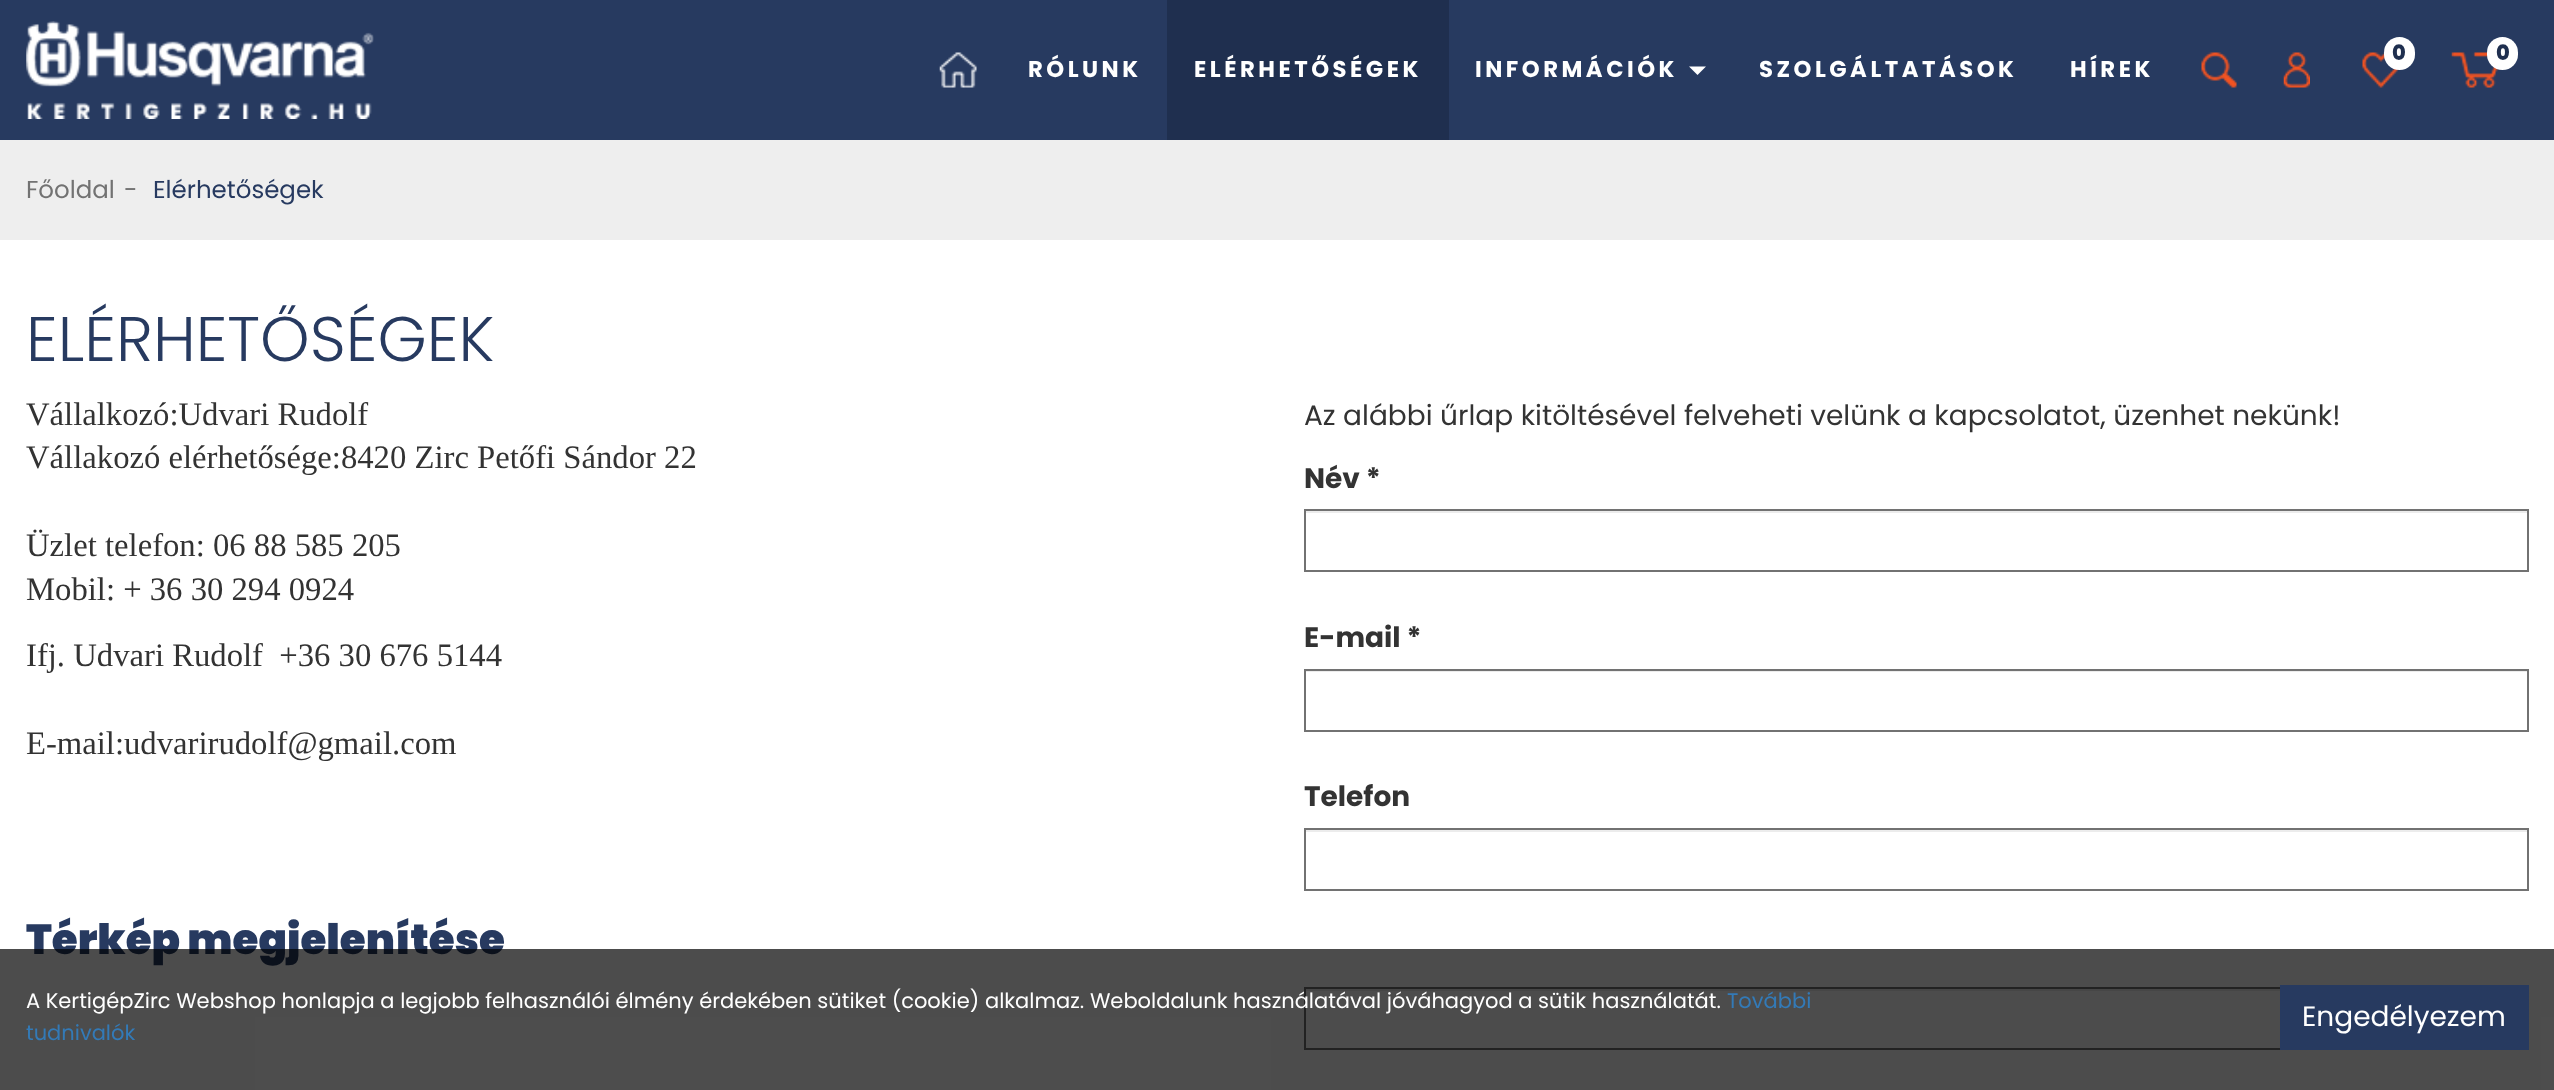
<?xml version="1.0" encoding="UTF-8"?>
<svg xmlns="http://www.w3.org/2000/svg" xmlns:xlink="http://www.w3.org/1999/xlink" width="2554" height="1090">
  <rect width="100%" height="100%" fill="#ffffff" />
  <rect width="2554" height="140" fill="#273a60" />
  <image x="26" y="21" width="348" height="98" xlink:href="image1.png" />
  <image x="939" y="52" width="38" height="36" xlink:href="image2.png" />
  <rect x="1167" width="282" height="140" fill="#1f2f4f" />
  <path d="M 1689 66.5 h 17 l -8.5 8.5 z" fill="#ffffff" />
  <image x="2201" y="52" width="36" height="36" xlink:href="image3.png" />
  <image x="2283" y="52" width="27" height="36" xlink:href="image4.png" />
  <image x="2362" y="52" width="37" height="36" xlink:href="image5.png" />
  <rect x="2384" y="37" width="31" height="33" rx="15.5" fill="#ffffff" />
  <image x="2451" y="52" width="47" height="36" xlink:href="image6.png" />
  <rect x="2487" y="37" width="31" height="33" rx="15.5" fill="#ffffff" />
  <rect y="140" width="2554" height="100" fill="#eeeeee" />
  <rect x="1306" y="511" width="1221" height="2" fill="#ececec" />
  <rect x="1305" y="510" width="1223" height="61" fill="none" stroke="#727272" stroke-width="2" />
  <rect x="1306" y="671" width="1221" height="1" fill="#ececec" />
  <rect x="1305" y="670" width="1223" height="61" fill="none" stroke="#727272" stroke-width="2" />
  <rect x="1306" y="830" width="1221" height="2" fill="#ececec" />
  <rect x="1305" y="829" width="1223" height="61" fill="none" stroke="#727272" stroke-width="2" />
  <rect x="1306" y="989" width="974" height="2" fill="#ececec" />
  <rect x="1305" y="988" width="1223" height="61" fill="none" stroke="#727272" stroke-width="2" />
  <text x="1028" y="77" style="font-family: Poppins; font-size: 22.75px; font-weight: bold; letter-spacing: 3.5px; fill: #ffffff">RÓLUNK</text>
  <text x="1194" y="77" style="font-family: Poppins; font-size: 22.75px; font-weight: bold; letter-spacing: 3.5px; fill: #ffffff">ELÉRHETŐSÉGEK</text>
  <text x="1475" y="77" style="font-family: Poppins; font-size: 22.75px; font-weight: bold; letter-spacing: 3.5px; fill: #ffffff">INFORMÁCIÓK</text>
  <text x="1759" y="77" style="font-family: Poppins; font-size: 22.75px; font-weight: bold; letter-spacing: 3.5px; fill: #ffffff">SZOLGÁLTATÁSOK</text>
  <text x="2070" y="77" style="font-family: Poppins; font-size: 22.75px; font-weight: bold; letter-spacing: 3.5px; fill: #ffffff">HÍREK</text>
  <text x="2392" y="60" style="font-family: Poppins; font-size: 21px; font-weight: 800; fill: #1f2f4f">0</text>
  <text x="2496" y="60" style="font-family: Poppins; font-size: 21px; font-weight: 800; fill: #1f2f4f">0</text>
  <text x="26" y="198" style="font-family: Poppins; font-size: 24.5px; fill: #727272">Főoldal</text>
  <text x="124" y="198" style="font-family: Poppins; font-size: 24.5px; fill: #727272">-</text>
  <text x="153" y="198" style="font-family: Poppins; font-size: 24.5px; fill: #273a60">Elérhetőségek</text>
  <text x="26" y="361" style="font-family: Poppins; font-size: 63px; font-weight: 300; fill: #273a60">ELÉRHETŐSÉGEK</text>
  <text x="26" y="425" style="font-family: Liberation Serif; font-size: 32.7px; fill: #333333">Vállalkozó:Udvari Rudolf</text>
  <text x="26" y="468" style="font-family: Liberation Serif; font-size: 32.7px; fill: #333333">Vállakozó elérhetősége:8420 Zirc Petőfi Sándor 22</text>
  <text x="26" y="556" style="font-family: Liberation Serif; font-size: 32.7px; fill: #333333">Üzlet telefon: 06 88 585 205</text>
  <text x="26" y="600" style="font-family: Liberation Serif; font-size: 32.7px; fill: #333333">Mobil: + 36 30 294 0924</text>
  <text x="26" y="666" style="font-family: Liberation Serif; font-size: 32.7px; fill: #333333" xml:space="preserve">Ifj. Udvari Rudolf  +36 30 676 5144</text>
  <text x="26" y="754" style="font-family: Liberation Serif; font-size: 32.7px; fill: #333333">E-mail:udvarirudolf@gmail.com</text>
  <text x="26" y="954" style="font-family: Poppins; font-size: 42px; font-weight: 900; fill: #273a60">Térkép megjelenítése</text>
  <text x="1304" y="425" style="font-family: Poppins; font-size: 28px; fill: #333333">Az alábbi űrlap kitöltésével felveheti velünk a kapcsolatot, üzenhet nekünk!</text>
  <text x="1304" y="488" style="font-family: Poppins; font-size: 28px; font-weight: bold; fill: #333333">Név *</text>
  <text x="1304" y="647" style="font-family: Poppins; font-size: 28px; font-weight: bold; fill: #333333">E-mail *</text>
  <text x="1304" y="806" style="font-family: Poppins; font-size: 28px; font-weight: bold; fill: #333333">Telefon</text>
  <rect y="949" width="2554" height="141" fill="#000000" fill-opacity="0.7" />
  <text x="26" y="1008" style="font-family: Poppins; font-size: 21px; fill: #ffffff">A KertigépZirc Webshop honlapja a legjobb felhasználói élmény érdekében sütiket (cookie) alkalmaz. Weboldalunk használatával jóváhagyod a sütik használatát.</text>
  <text x="1727" y="1008" style="font-family: Poppins; font-size: 21px; fill: #337ab7">További</text>
  <text x="26" y="1040" style="font-family: Poppins; font-size: 21px; fill: #337ab7">tudnivalók</text>
  <rect x="2280" y="985" width="249" height="65" fill="#273a60" />
  <text x="2302" y="1026" style="font-family: Poppins; font-size: 28px; fill: #ffffff">Engedélyezem</text>
</svg>
